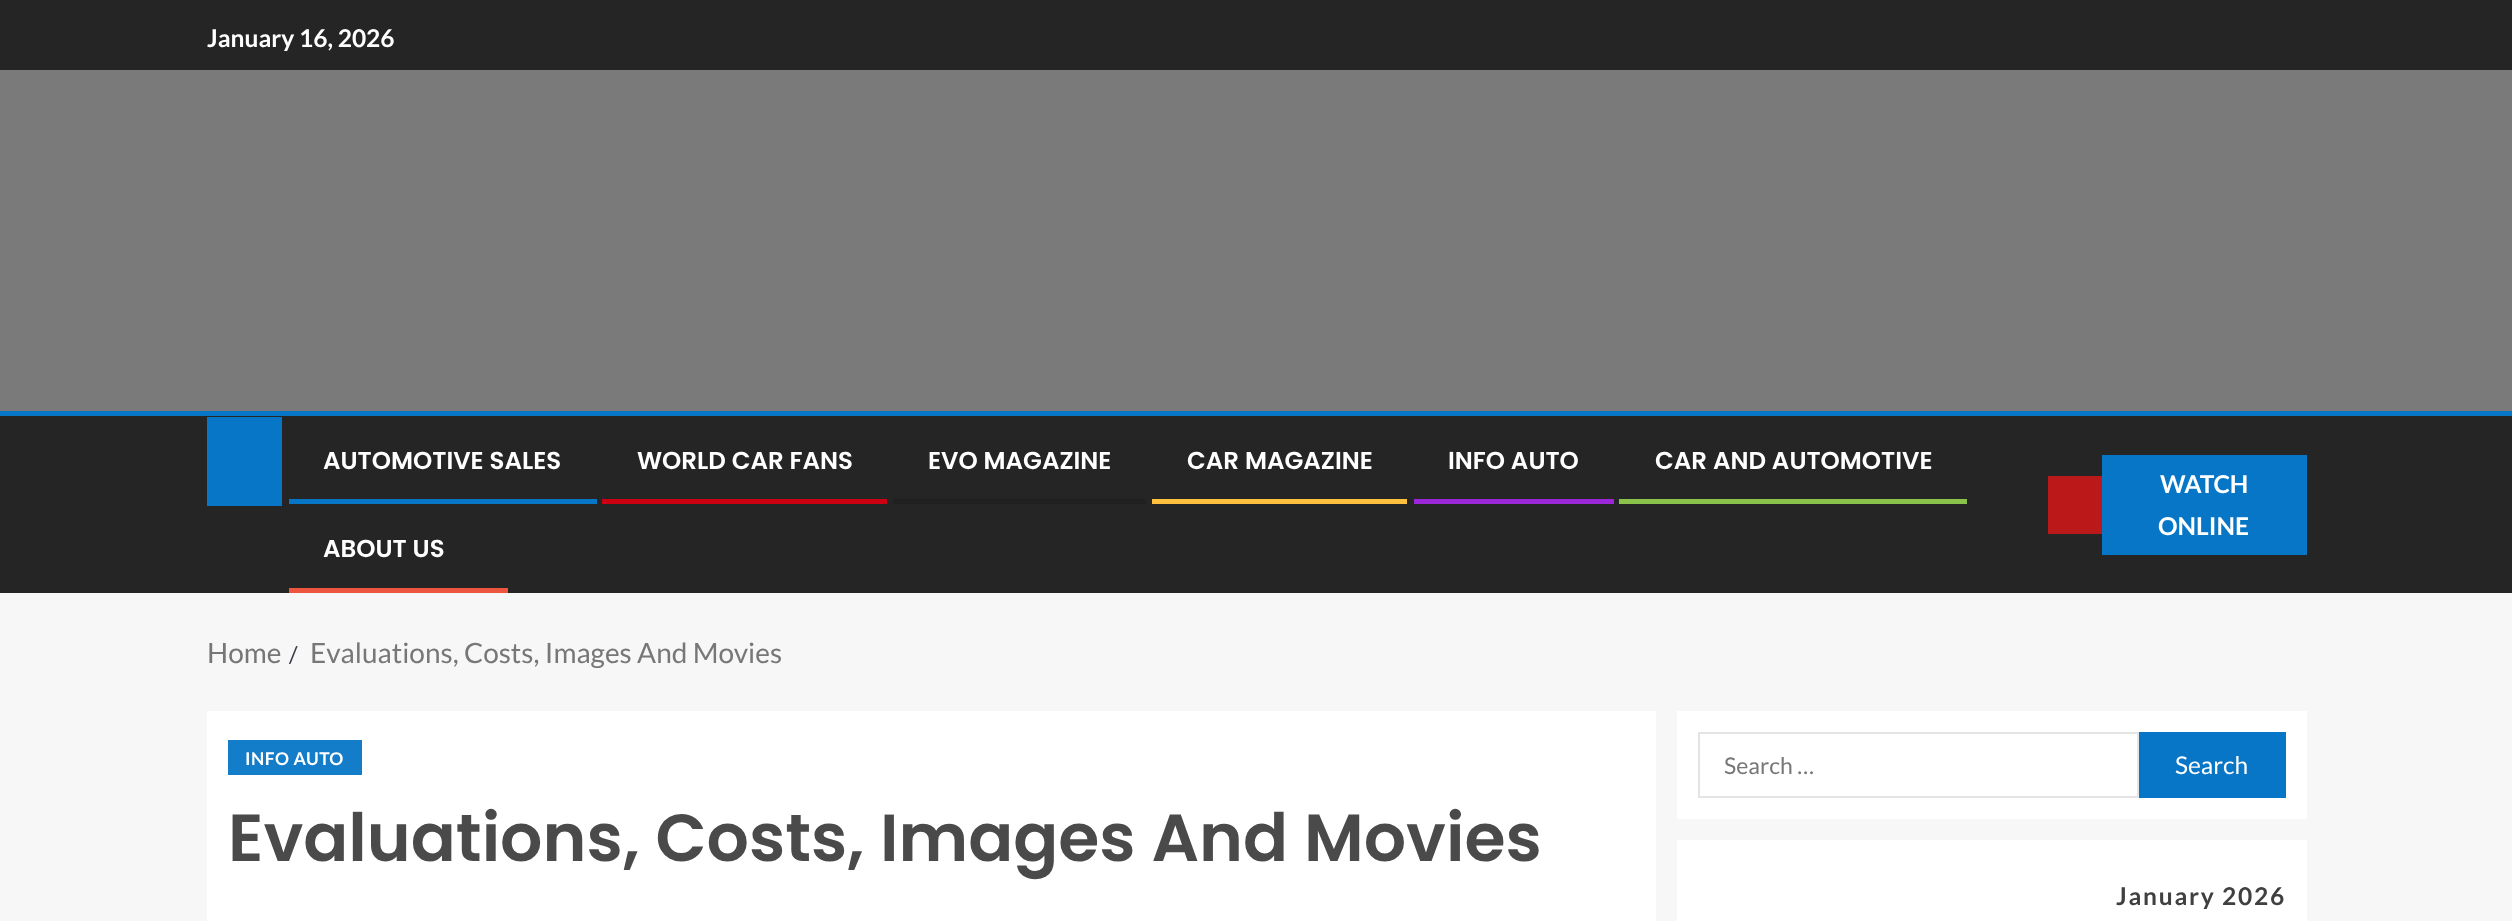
<?xml version="1.0" encoding="UTF-8"?>
<svg xmlns="http://www.w3.org/2000/svg" xmlns:xlink="http://www.w3.org/1999/xlink" width="2512" height="921">
  <rect width="100%" height="100%" fill="#f7f7f7" />
  <rect width="2512" height="70" fill="#252525" />
  <rect y="70" width="2512" height="341" fill="#7a7a7a" />
  <rect y="416" width="2512" height="177" fill="#252525" />
  <rect y="411" width="2512" height="5" fill="#0776c6" />
  <rect x="207" y="417" width="75" height="89" fill="#0776c6" />
  <rect x="289" y="499" width="308" height="5" fill="#0776c6" />
  <rect x="602" y="499" width="285" height="5" fill="#cc0010" />
  <rect x="893" y="499" width="253" height="5" fill="#202020" />
  <rect x="1152" y="499" width="255" height="5" fill="#ffbf3f" />
  <rect x="1414" y="499" width="200" height="5" fill="#9c27d9" />
  <rect x="1619" y="499" width="348" height="5" fill="#8bc34a" />
  <rect x="289" y="588" width="219" height="5" fill="#ed553f" />
  <rect x="2048" y="476" width="54" height="58" fill="#bb1919" />
  <rect x="2102" y="455" width="205" height="100" fill="#0776c6" />
  <rect x="207" y="711" width="1449" height="210" fill="#ffffff" />
  <rect x="228" y="740" width="134" height="35" fill="#137dc9" />
  <rect x="1677" y="711" width="630" height="108" fill="#ffffff" />
  <rect x="1699" y="733" width="439" height="64" fill="none" stroke="#e4e4e4" stroke-width="2" />
  <rect x="2139" y="732" width="147" height="66" fill="#0776c6" />
  <rect x="1677" y="840" width="630" height="81" fill="#ffffff" />
  <text x="207" y="47" style="font-family: Lato; font-size: 24.5px; font-weight: bold; fill: #ffffff">January 16, 2026</text>
  <text x="323" y="469" style="font-family: Poppins; font-size: 24.5px; font-weight: 600; fill: #ffffff">AUTOMOTIVE SALES</text>
  <text x="637" y="469" style="font-family: Poppins; font-size: 24.5px; font-weight: 600; fill: #ffffff">WORLD CAR FANS</text>
  <text x="928" y="469" style="font-family: Poppins; font-size: 24.5px; font-weight: 600; fill: #ffffff">EVO MAGAZINE</text>
  <text x="1187" y="469" style="font-family: Poppins; font-size: 24.5px; font-weight: 600; fill: #ffffff">CAR MAGAZINE</text>
  <text x="1448" y="469" style="font-family: Poppins; font-size: 24.5px; font-weight: 600; fill: #ffffff">INFO AUTO</text>
  <text x="1655" y="469" style="font-family: Poppins; font-size: 24.5px; font-weight: 600; fill: #ffffff">CAR AND AUTOMOTIVE</text>
  <text x="323" y="557" style="font-family: Poppins; font-size: 24.5px; font-weight: 600; fill: #ffffff">ABOUT US</text>
  <text x="2160" y="493" style="font-family: Lato; font-size: 24.5px; font-weight: bold; fill: #ffffff">WATCH</text>
  <text x="2158" y="535" style="font-family: Lato; font-size: 24.5px; font-weight: bold; fill: #ffffff">ONLINE</text>
  <text x="207" y="663" style="font-family: Lato; font-size: 28px; fill: #777777">Home</text>
  <text x="289" y="663" style="font-family: Lato; font-size: 23px; fill: #393e46">/</text>
  <text x="310" y="663" style="font-family: Lato; font-size: 28px; fill: #777777">Evaluations, Costs, Images And Movies</text>
  <text x="245" y="765" style="font-family: Lato; font-size: 17.5px; font-weight: bold; letter-spacing: 0.5px; fill: #ffffff">INFO AUTO</text>
  <text x="228" y="861" style="font-family: Poppins; font-size: 66.5px; font-weight: 600; fill: #4a4a4a">Evaluations, Costs, Images And Movies</text>
  <text x="1724" y="774" style="font-family: Lato; font-size: 23px; fill: #777777">Search …</text>
  <text x="2175" y="774" style="font-family: Lato; font-size: 24.5px; fill: #ffffff">Search</text>
  <text x="2116" y="905" style="font-family: Lato; font-size: 24.5px; font-weight: bold; letter-spacing: 1.75px; fill: #404040">January 2026</text>
</svg>
